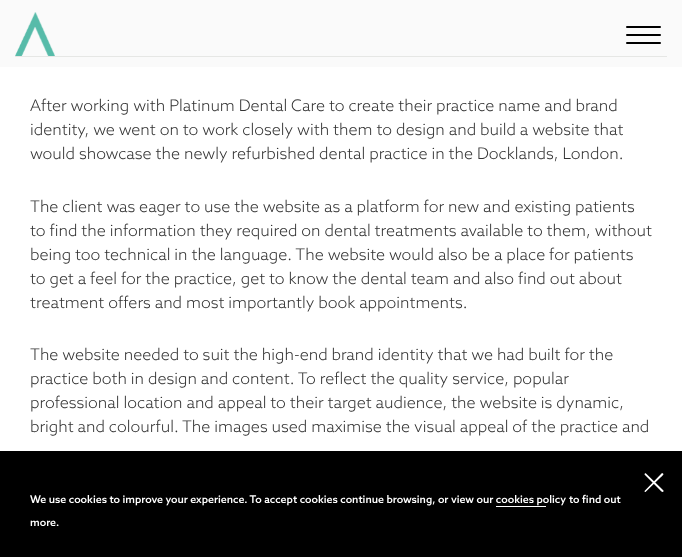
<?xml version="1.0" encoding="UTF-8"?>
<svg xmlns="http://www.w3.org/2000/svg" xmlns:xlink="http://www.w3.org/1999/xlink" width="682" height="557">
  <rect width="100%" height="100%" fill="#ffffff" />
  <rect width="682" height="67" fill="#fafafa" />
  <rect x="15" y="56" width="652" height="1" fill="#e6e7e5" />
  <image x="15" y="12" width="40" height="44" xlink:href="image1.png" />
  <rect x="626" y="26" width="35" height="2" rx="1" fill="#000000" />
  <rect x="626" y="34" width="35" height="2" rx="1" fill="#000000" />
  <rect x="626" y="42" width="35" height="2" rx="1" fill="#000000" />
  <rect y="451" width="682" height="106" fill="#000000" />
  <path d="M 645 490.5 l 17 -17.5 l 1 0.5 c 1.5 1 -1 2.5 -2.5 4 l -15 14.5 c -0.5 0.5 -1.5 -1 -0.5 -1.5 z" fill="#ffffff" />
  <path d="M 646 473.5 l 17.5 17 v 1 c -1 1.5 -3 -1 -4.5 -2.5 l -14.5 -14.5 c 0 -1 1 -1.5 1.5 -1 z" fill="#ffffff" />
  <rect x="496" y="506" width="50" height="1" fill="#ffffff" />
  <text x="30" y="111" style="font-family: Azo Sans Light; font-size: 16px; font-weight: 300; fill: #333333">After working with Platinum Dental Care to create their practice name and brand</text>
  <text x="30" y="135" style="font-family: Azo Sans Light; font-size: 16px; font-weight: 300; fill: #333333">identity, we went on to work closely with them to design and build a website that</text>
  <text x="30" y="159" style="font-family: Azo Sans Light; font-size: 16px; font-weight: 300; fill: #333333">would showcase the newly refurbished dental practice in the Docklands, London.</text>
  <text x="30" y="212" style="font-family: Azo Sans Light; font-size: 16px; font-weight: 300; fill: #333333">The client was eager to use the website as a platform for new and existing patients</text>
  <text x="30" y="236" style="font-family: Azo Sans Light; font-size: 16px; font-weight: 300; fill: #333333">to find the information they required on dental treatments available to them, without</text>
  <text x="30" y="260" style="font-family: Azo Sans Light; font-size: 16px; font-weight: 300; fill: #333333">being too technical in the language. The website would also be a place for patients</text>
  <text x="30" y="284" style="font-family: Azo Sans Light; font-size: 16px; font-weight: 300; fill: #333333">to get a feel for the practice, get to know the dental team and also find out about</text>
  <text x="30" y="308" style="font-family: Azo Sans Light; font-size: 16px; font-weight: 300; fill: #333333">treatment offers and most importantly book appointments.</text>
  <text x="30" y="360" style="font-family: Azo Sans Light; font-size: 16px; font-weight: 300; fill: #333333">The website needed to suit the high-end brand identity that we had built for the</text>
  <text x="30" y="384" style="font-family: Azo Sans Light; font-size: 16px; font-weight: 300; fill: #333333">practice both in design and content. To reflect the quality service, popular</text>
  <text x="30" y="408" style="font-family: Azo Sans Light; font-size: 16px; font-weight: 300; fill: #333333">professional location and appeal to their target audience, the website is dynamic,</text>
  <text x="30" y="432" style="font-family: Azo Sans Light; font-size: 16px; font-weight: 300; fill: #333333">bright and colourful. The images used maximise the visual appeal of the practice and</text>
  <text x="30" y="503" style="font-family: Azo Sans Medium; font-size: 10.55px; font-weight: 500; fill: #ffffff">We use cookies to improve your experience. To accept cookies continue browsing, or view our cookies policy</text>
  <text x="569" y="503" style="font-family: Azo Sans Medium; font-size: 10.55px; font-weight: 500; fill: #ffffff">to find out</text>
  <text x="30" y="526" style="font-family: Azo Sans Medium; font-size: 10.55px; font-weight: 500; fill: #ffffff">more.</text>
</svg>
